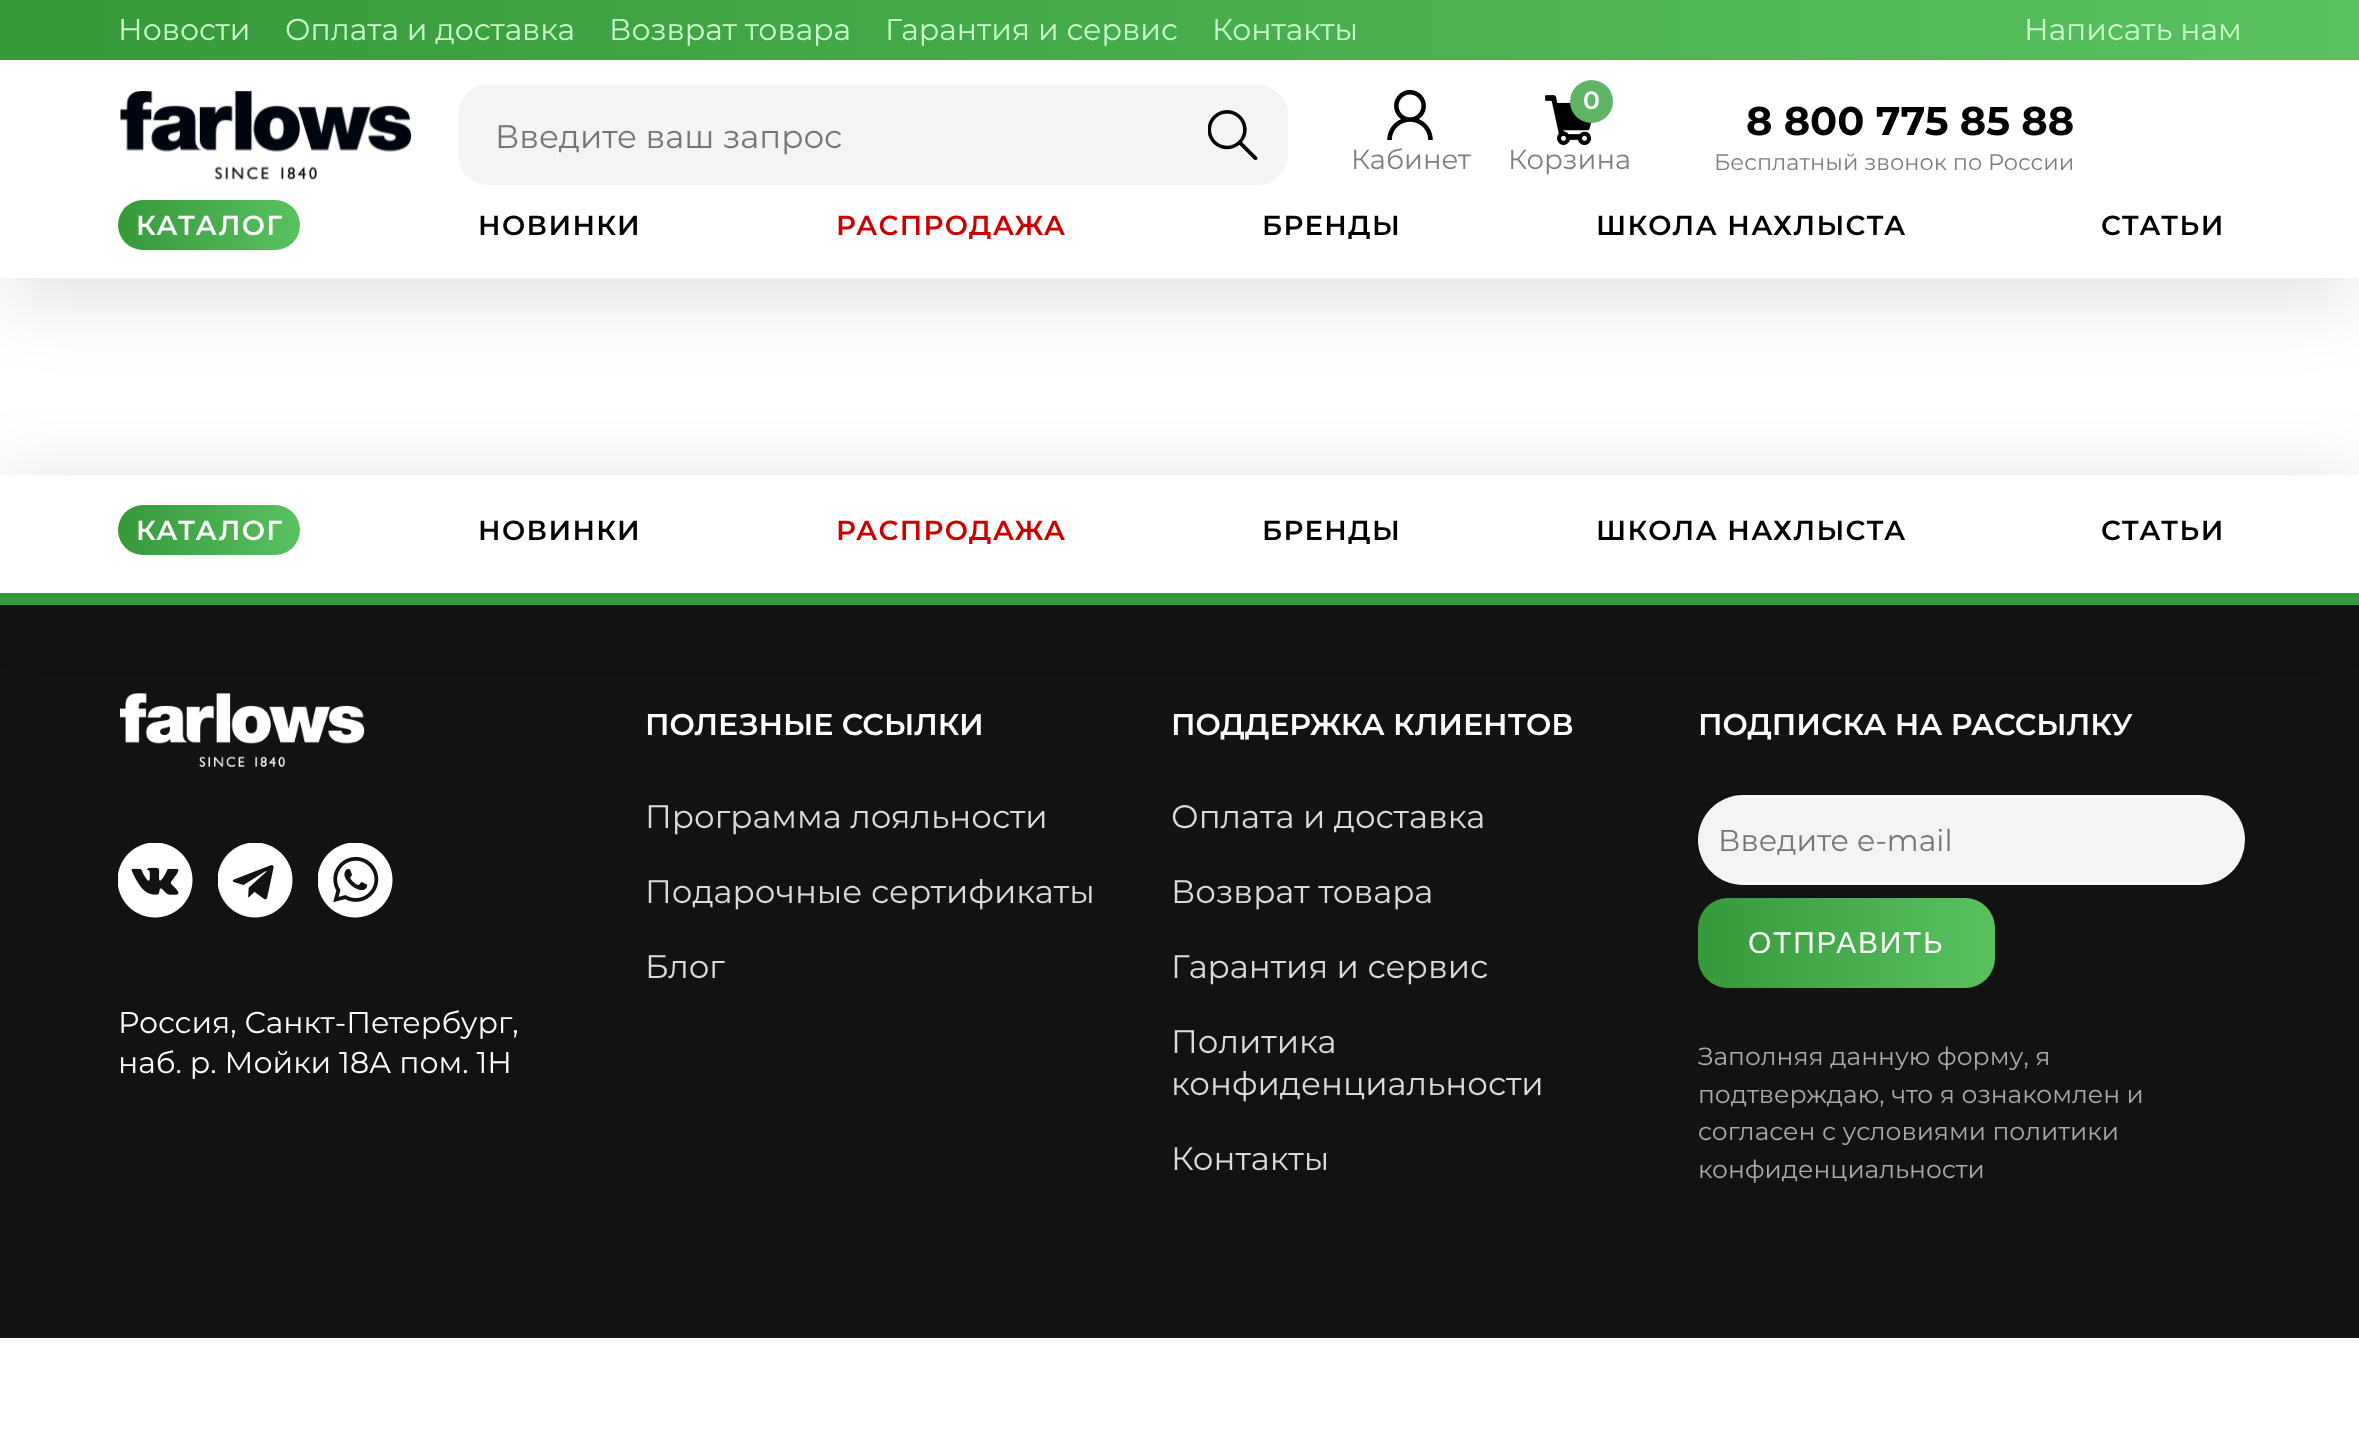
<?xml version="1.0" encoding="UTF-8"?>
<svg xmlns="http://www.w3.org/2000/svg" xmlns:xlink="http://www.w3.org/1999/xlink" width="2359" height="1453">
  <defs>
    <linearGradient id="g1" gradientUnits="userSpaceOnUse" x1="0" y1="30" x2="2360" y2="30"><stop offset="0" stop-color="#36993a" /><stop offset="1" stop-color="#59c15f" /></linearGradient>
    <linearGradient id="g2" gradientUnits="userSpaceOnUse" x1="118" y1="225" x2="300" y2="225"><stop offset="0" stop-color="#36993a" /><stop offset="1" stop-color="#59c15f" /></linearGradient>
    <linearGradient id="g3" gradientUnits="userSpaceOnUse" x1="118" y1="530" x2="300" y2="530"><stop offset="0" stop-color="#36993a" /><stop offset="1" stop-color="#59c15f" /></linearGradient>
    <linearGradient id="g4" gradientUnits="userSpaceOnUse" x1="1698" y1="943" x2="1995" y2="943"><stop offset="0" stop-color="#36993a" /><stop offset="1" stop-color="#59c15f" /></linearGradient>
  </defs>
  <rect width="100%" height="100%" fill="#ffffff" />
  <rect y="25" width="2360" height="278" fill="#000000" fill-opacity="0.1" filter="blur(37.5px)" />
  <rect y="60" width="2359" height="218" fill="#ffffff" />
  <rect width="2359" height="60" fill="url(#g1)" />
  <image x="120" y="91" width="292" height="89" xlink:href="image1.png" />
  <rect x="458" y="85" width="830" height="100" rx="30" fill="#f4f4f4" />
  <image x="1208" y="110" width="50" height="50" xlink:href="image2.png" />
  <image x="1387" y="90" width="46" height="50" xlink:href="image3.png" />
  <image x="1545" y="95" width="46" height="50" xlink:href="image4.png" />
  <circle cx="1591.5" cy="101.5" r="21.5" fill="#60b564" />
  <rect x="118" y="200" width="182" height="50" rx="25" fill="url(#g2)" />
  <rect y="605" width="2359" height="733" fill="#121212" />
  <rect y="475" width="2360" height="130" fill="#000000" fill-opacity="0.1" filter="blur(37.5px)" />
  <rect y="475" width="2359" height="118" fill="#ffffff" />
  <rect y="593" width="2359" height="12" fill="#36993a" />
  <rect x="118" y="505" width="182" height="50" rx="25" fill="url(#g3)" />
  <image x="120" y="693" width="245" height="74" xlink:href="image5.png" />
  <image x="118" y="843" width="75" height="75" xlink:href="image6.png" />
  <image x="218" y="843" width="75" height="75" xlink:href="image7.png" />
  <image x="318" y="843" width="75" height="75" xlink:href="image8.png" />
  <rect x="1698" y="795" width="547" height="90" rx="45" fill="#f4f4f4" />
  <rect x="1698" y="898" width="297" height="90" rx="30" fill="url(#g4)" />
  <text x="118" y="40" style="font-family: Montserrat; font-size: 30px; fill: #ceffce">Новости</text>
  <text x="285" y="40" style="font-family: Montserrat; font-size: 30px; fill: #ceffce">Оплата и доставка</text>
  <text x="609" y="40" style="font-family: Montserrat; font-size: 30px; fill: #ceffce">Возврат товара</text>
  <text x="885" y="40" style="font-family: Montserrat; font-size: 30px; fill: #ceffce">Гарантия и сервис</text>
  <text x="1212" y="40" style="font-family: Montserrat; font-size: 30px; fill: #ceffce">Контакты</text>
  <text x="2024" y="40" style="font-family: Montserrat; font-size: 30px; fill: #ceffce">Написать нам</text>
  <text x="495" y="148" style="font-family: Montserrat; font-size: 32.5px; fill: #757575">Введите ваш запрос</text>
  <text x="1351" y="169" style="font-family: Montserrat; font-size: 27.5px; fill: #7e7e7e">Кабинет</text>
  <text x="1583" y="109" style="font-family: Montserrat; font-size: 25px; font-weight: 600; fill: #ffffff">0</text>
  <text x="1508" y="169" style="font-family: Montserrat; font-size: 27.5px; fill: #7e7e7e">Корзина</text>
  <text x="1746" y="135" style="font-family: Montserrat; font-size: 40px; font-weight: bold; fill: #000000">8 800 775 85 88</text>
  <text x="1714" y="170" style="font-family: Montserrat; font-size: 22.5px; fill: #7e7e7e">Бесплатный звонок по России</text>
  <text x="136" y="235" style="font-family: Montserrat; font-size: 27.5px; font-weight: 600; letter-spacing: 1.4px; fill: #ffffff">КАТАЛОГ</text>
  <text x="478" y="235" style="font-family: Montserrat; font-size: 27.5px; font-weight: 600; letter-spacing: 1.4px; fill: #000000">НОВИНКИ</text>
  <text x="836" y="235" style="font-family: Montserrat; font-size: 27.5px; font-weight: 600; letter-spacing: 1.4px; fill: #cd0000">РАСПРОДАЖА</text>
  <text x="1262" y="235" style="font-family: Montserrat; font-size: 27.5px; font-weight: 600; letter-spacing: 1.4px; fill: #000000">БРЕНДЫ</text>
  <text x="1596" y="235" style="font-family: Montserrat; font-size: 27.5px; font-weight: 600; letter-spacing: 1.4px; fill: #000000">ШКОЛА НАХЛЫСТА</text>
  <text x="2101" y="235" style="font-family: Montserrat; font-size: 27.5px; font-weight: 600; letter-spacing: 1.4px; fill: #000000">СТАТЬИ</text>
  <text x="136" y="540" style="font-family: Montserrat; font-size: 27.5px; font-weight: 600; letter-spacing: 1.4px; fill: #ffffff">КАТАЛОГ</text>
  <text x="478" y="540" style="font-family: Montserrat; font-size: 27.5px; font-weight: 600; letter-spacing: 1.4px; fill: #000000">НОВИНКИ</text>
  <text x="836" y="540" style="font-family: Montserrat; font-size: 27.5px; font-weight: 600; letter-spacing: 1.4px; fill: #cd0000">РАСПРОДАЖА</text>
  <text x="1262" y="540" style="font-family: Montserrat; font-size: 27.5px; font-weight: 600; letter-spacing: 1.4px; fill: #000000">БРЕНДЫ</text>
  <text x="1596" y="540" style="font-family: Montserrat; font-size: 27.5px; font-weight: 600; letter-spacing: 1.4px; fill: #000000">ШКОЛА НАХЛЫСТА</text>
  <text x="2101" y="540" style="font-family: Montserrat; font-size: 27.5px; font-weight: 600; letter-spacing: 1.4px; fill: #000000">СТАТЬИ</text>
  <text x="118" y="1033" style="font-family: Montserrat; font-size: 30px; fill: #ffffff">Россия, Санкт-Петербург,</text>
  <text x="118" y="1073" style="font-family: Montserrat; font-size: 30px; fill: #ffffff">наб. р. Мойки 18А пом. 1Н</text>
  <text x="645" y="735" style="font-family: Montserrat; font-size: 30px; font-weight: 600; fill: #ffffff">ПОЛЕЗНЫЕ ССЫЛКИ</text>
  <text x="645" y="828" style="font-family: Montserrat; font-size: 32.5px; fill: #dbdbdb">Программа лояльности</text>
  <text x="645" y="903" style="font-family: Montserrat; font-size: 32.5px; fill: #dbdbdb">Подарочные сертификаты</text>
  <text x="645" y="978" style="font-family: Montserrat; font-size: 32.5px; fill: #dbdbdb">Блог</text>
  <text x="1171" y="735" style="font-family: Montserrat; font-size: 30px; font-weight: 600; fill: #ffffff">ПОДДЕРЖКА КЛИЕНТОВ</text>
  <text x="1171" y="828" style="font-family: Montserrat; font-size: 32.5px; fill: #dbdbdb">Оплата и доставка</text>
  <text x="1171" y="903" style="font-family: Montserrat; font-size: 32.5px; fill: #dbdbdb">Возврат товара</text>
  <text x="1171" y="978" style="font-family: Montserrat; font-size: 32.5px; fill: #dbdbdb">Гарантия и сервис</text>
  <text x="1171" y="1053" style="font-family: Montserrat; font-size: 32.5px; fill: #dbdbdb">Политика</text>
  <text x="1171" y="1095" style="font-family: Montserrat; font-size: 32.5px; fill: #dbdbdb">конфиденциальности</text>
  <text x="1171" y="1170" style="font-family: Montserrat; font-size: 32.5px; fill: #dbdbdb">Контакты</text>
  <text x="1698" y="735" style="font-family: Montserrat; font-size: 30px; font-weight: 600; fill: #ffffff">ПОДПИСКА НА РАССЫЛКУ</text>
  <text x="1718" y="851" style="font-family: Montserrat; font-size: 30px; fill: #757575">Введите e-mail</text>
  <text x="1748" y="953" style="font-family: Liberation Sans; font-size: 30px; letter-spacing: 1.75px; fill: #ffffff">ОТПРАВИТЬ</text>
  <text x="1698" y="1065" style="font-family: Montserrat; font-size: 25px; fill: #aaaaaa">Заполняя данную форму, я</text>
  <text x="1698" y="1103" style="font-family: Montserrat; font-size: 25px; fill: #aaaaaa">подтверждаю, что я ознакомлен и</text>
  <text x="1698" y="1140" style="font-family: Montserrat; font-size: 25px; fill: #aaaaaa">согласен с условиями политики</text>
  <text x="1698" y="1178" style="font-family: Montserrat; font-size: 25px; fill: #aaaaaa">конфиденциальности</text>
</svg>
